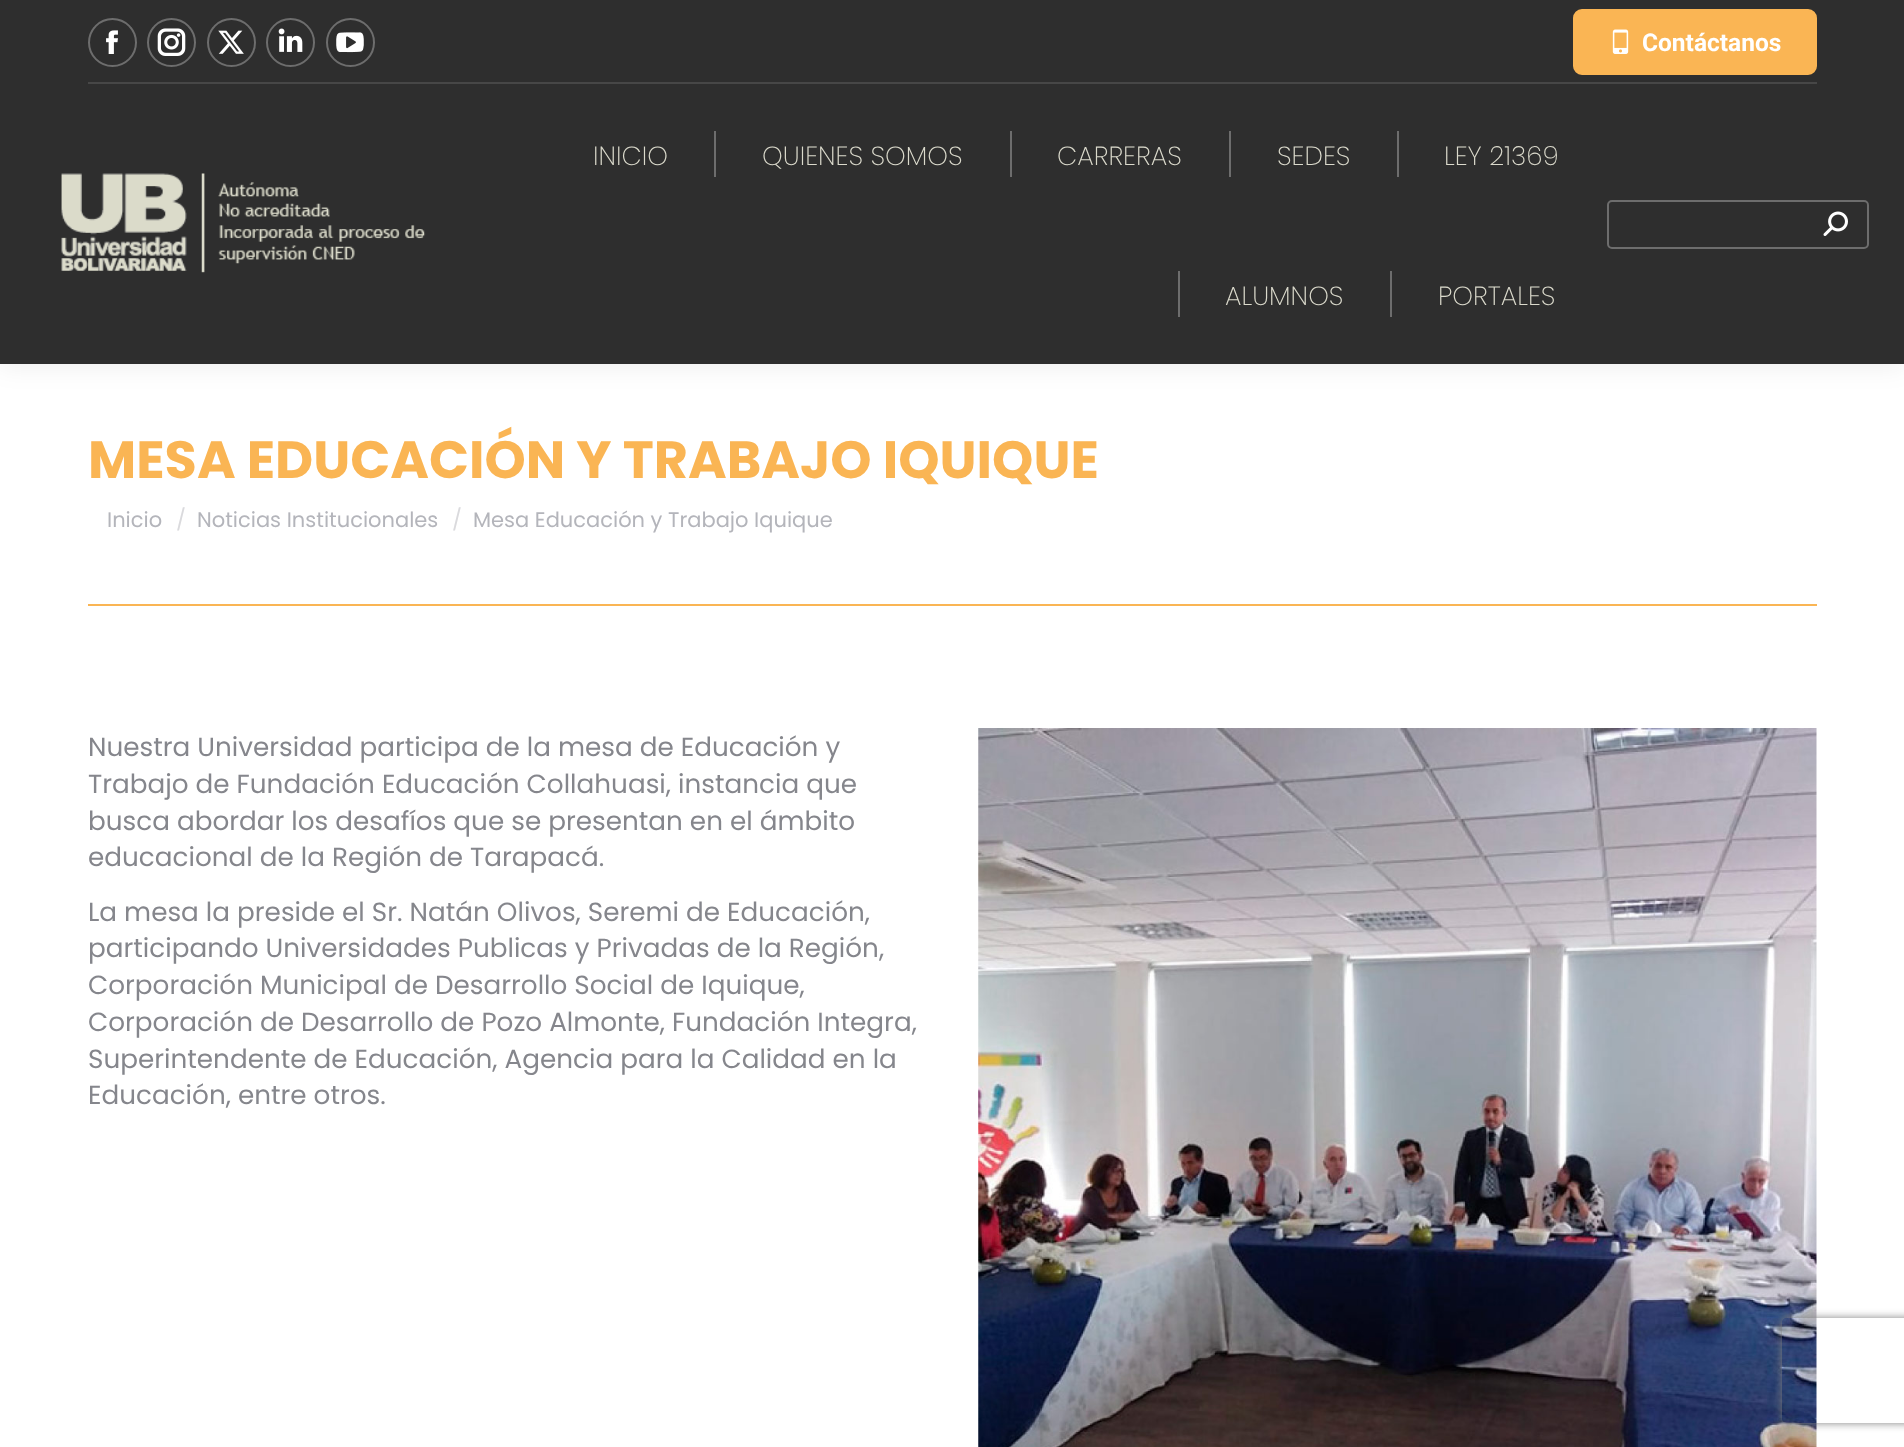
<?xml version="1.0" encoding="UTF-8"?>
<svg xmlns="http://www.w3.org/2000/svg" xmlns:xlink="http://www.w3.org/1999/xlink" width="1904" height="1447">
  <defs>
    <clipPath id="clip1"><path d="M 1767 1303 h 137 v 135 h -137 z m 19 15 h 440 c 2 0 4 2 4 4 v 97 c 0 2 -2 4 -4 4 h -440 c -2 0 -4 -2 -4 -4 v -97 c 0 -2 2 -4 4 -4 z" clip-rule="evenodd" /></clipPath>
  </defs>
  <rect width="100%" height="100%" fill="#ffffff" />
  <rect x="-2" y="-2" width="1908" height="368" fill="#000000" fill-opacity="0.07" filter="blur(13px)" />
  <rect width="1904" height="364" fill="#2e2e2e" />
  <circle cx="112.5" cy="42.5" r="23.5" fill="none" stroke="#6d6d6d" stroke-width="2" />
  <image x="106" y="30" width="12" height="24" xlink:href="image1.png" />
  <circle cx="171.5" cy="42.5" r="23.5" fill="none" stroke="#6d6d6d" stroke-width="2" />
  <image x="157" y="28" width="29" height="28" xlink:href="image2.png" />
  <circle cx="231.5" cy="42.5" r="23.5" fill="none" stroke="#6d6d6d" stroke-width="2" />
  <image x="218" y="30" width="26" height="24" xlink:href="image3.png" />
  <circle cx="290.5" cy="42.5" r="23.5" fill="none" stroke="#6d6d6d" stroke-width="2" />
  <image x="278" y="28" width="25" height="24" xlink:href="image4.png" />
  <circle cx="350.5" cy="42.5" r="23.5" fill="none" stroke="#6d6d6d" stroke-width="2" />
  <image x="336" y="32" width="28" height="21" xlink:href="image5.png" />
  <rect x="1574" y="10" width="242" height="64" rx="8" fill="#fab554" stroke="#fab554" stroke-width="2" />
  <image x="1612" y="29" width="17" height="25" xlink:href="image6.png" />
  <rect x="88" y="82" width="1729" height="2" fill="#474747" />
  <image x="61" y="173" width="365" height="100" xlink:href="image7.png" />
  <rect x="714" y="131" width="2" height="46" fill="#6d6d6d" />
  <rect x="1010" y="131" width="2" height="46" fill="#6d6d6d" />
  <rect x="1229" y="131" width="2" height="46" fill="#6d6d6d" />
  <rect x="1397" y="131" width="2" height="46" fill="#6d6d6d" />
  <rect x="1178" y="271" width="2" height="46" fill="#6d6d6d" />
  <rect x="1390" y="271" width="2" height="46" fill="#6d6d6d" />
  <rect x="1608" y="201" width="260" height="47" rx="4" fill="none" stroke="#6d6d6d" stroke-width="2" />
  <image x="1823" y="211" width="25" height="25" xlink:href="image8.png" />
  <rect x="88" y="604" width="1729" height="2" fill="#fab554" />
  <image x="978" y="728" width="839" height="719" xlink:href="image9.png" />
  <g clip-path="url(#clip1)">
    <rect x="1782" y="1318" width="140" height="105" rx="4" fill="#808080" filter="blur(4.5px)" />
  </g>
  <text x="1642" y="51" style="font-family: Roboto; font-size: 24.5px; font-weight: bold; fill: #ffffff">Contáctanos</text>
  <text x="593" y="165" style="font-family: Poppins; font-size: 26.25px; font-weight: 200; fill: #dbdacc">INICIO</text>
  <text x="762" y="165" style="font-family: Poppins; font-size: 26.25px; font-weight: 200; fill: #dbdacc">QUIENES SOMOS</text>
  <text x="1057" y="165" style="font-family: Poppins; font-size: 26.25px; font-weight: 200; fill: #dbdacc">CARRERAS</text>
  <text x="1277" y="165" style="font-family: Poppins; font-size: 26.25px; font-weight: 200; fill: #dbdacc">SEDES</text>
  <text x="1444" y="165" style="font-family: Poppins; font-size: 26.25px; font-weight: 200; fill: #dbdacc">LEY 21369</text>
  <text x="1225" y="305" style="font-family: Poppins; font-size: 26.25px; font-weight: 200; fill: #dbdacc">ALUMNOS</text>
  <text x="1438" y="305" style="font-family: Poppins; font-size: 26.25px; font-weight: 200; fill: #dbdacc">PORTALES</text>
  <text x="88" y="478" style="font-family: Poppins; font-size: 52.5px; font-weight: bold; fill: #fab554">MESA EDUCACIÓN Y TRABAJO IQUIQUE</text>
  <text x="107" y="527" style="font-family: Poppins; font-size: 21px; fill: #b4b5bb">Inicio</text>
  <text x="176" y="527" style="font-family: Poppins; font-size: 21px; fill: #dadadd">/</text>
  <text x="197" y="527" style="font-family: Poppins; font-size: 21px; fill: #b4b5bb">Noticias Institucionales</text>
  <text x="452" y="527" style="font-family: Poppins; font-size: 21px; fill: #dadadd">/</text>
  <text x="473" y="527" style="font-family: Poppins; font-size: 21px; fill: #b4b5bb">Mesa Educación y Trabajo Iquique</text>
  <text x="88" y="756" style="font-family: Poppins; font-size: 26.25px; fill: #85868c">Nuestra Universidad participa de la mesa de Educación y</text>
  <text x="88" y="793" style="font-family: Poppins; font-size: 26.25px; fill: #85868c">Trabajo de Fundación Educación Collahuasi, instancia que</text>
  <text x="88" y="830" style="font-family: Poppins; font-size: 26.25px; fill: #85868c">busca abordar los desafíos que se presentan en el ámbito</text>
  <text x="88" y="866" style="font-family: Poppins; font-size: 26.25px; fill: #85868c">educacional de la Región de Tarapacá.</text>
  <text x="88" y="921" style="font-family: Poppins; font-size: 26.25px; fill: #85868c">La mesa la preside el Sr. Natán Olivos, Seremi de Educación,</text>
  <text x="88" y="957" style="font-family: Poppins; font-size: 26.25px; fill: #85868c">participando Universidades Publicas y Privadas de la Región,</text>
  <text x="88" y="994" style="font-family: Poppins; font-size: 26.25px; fill: #85868c">Corporación Municipal de Desarrollo Social de Iquique,</text>
  <text x="88" y="1031" style="font-family: Poppins; font-size: 26.25px; fill: #85868c">Corporación de Desarrollo de Pozo Almonte, Fundación Integra,</text>
  <text x="88" y="1068" style="font-family: Poppins; font-size: 26.25px; fill: #85868c">Superintendente de Educación, Agencia para la Calidad en la</text>
  <text x="88" y="1104" style="font-family: Poppins; font-size: 26.25px; fill: #85868c">Educación, entre otros.</text>
</svg>
